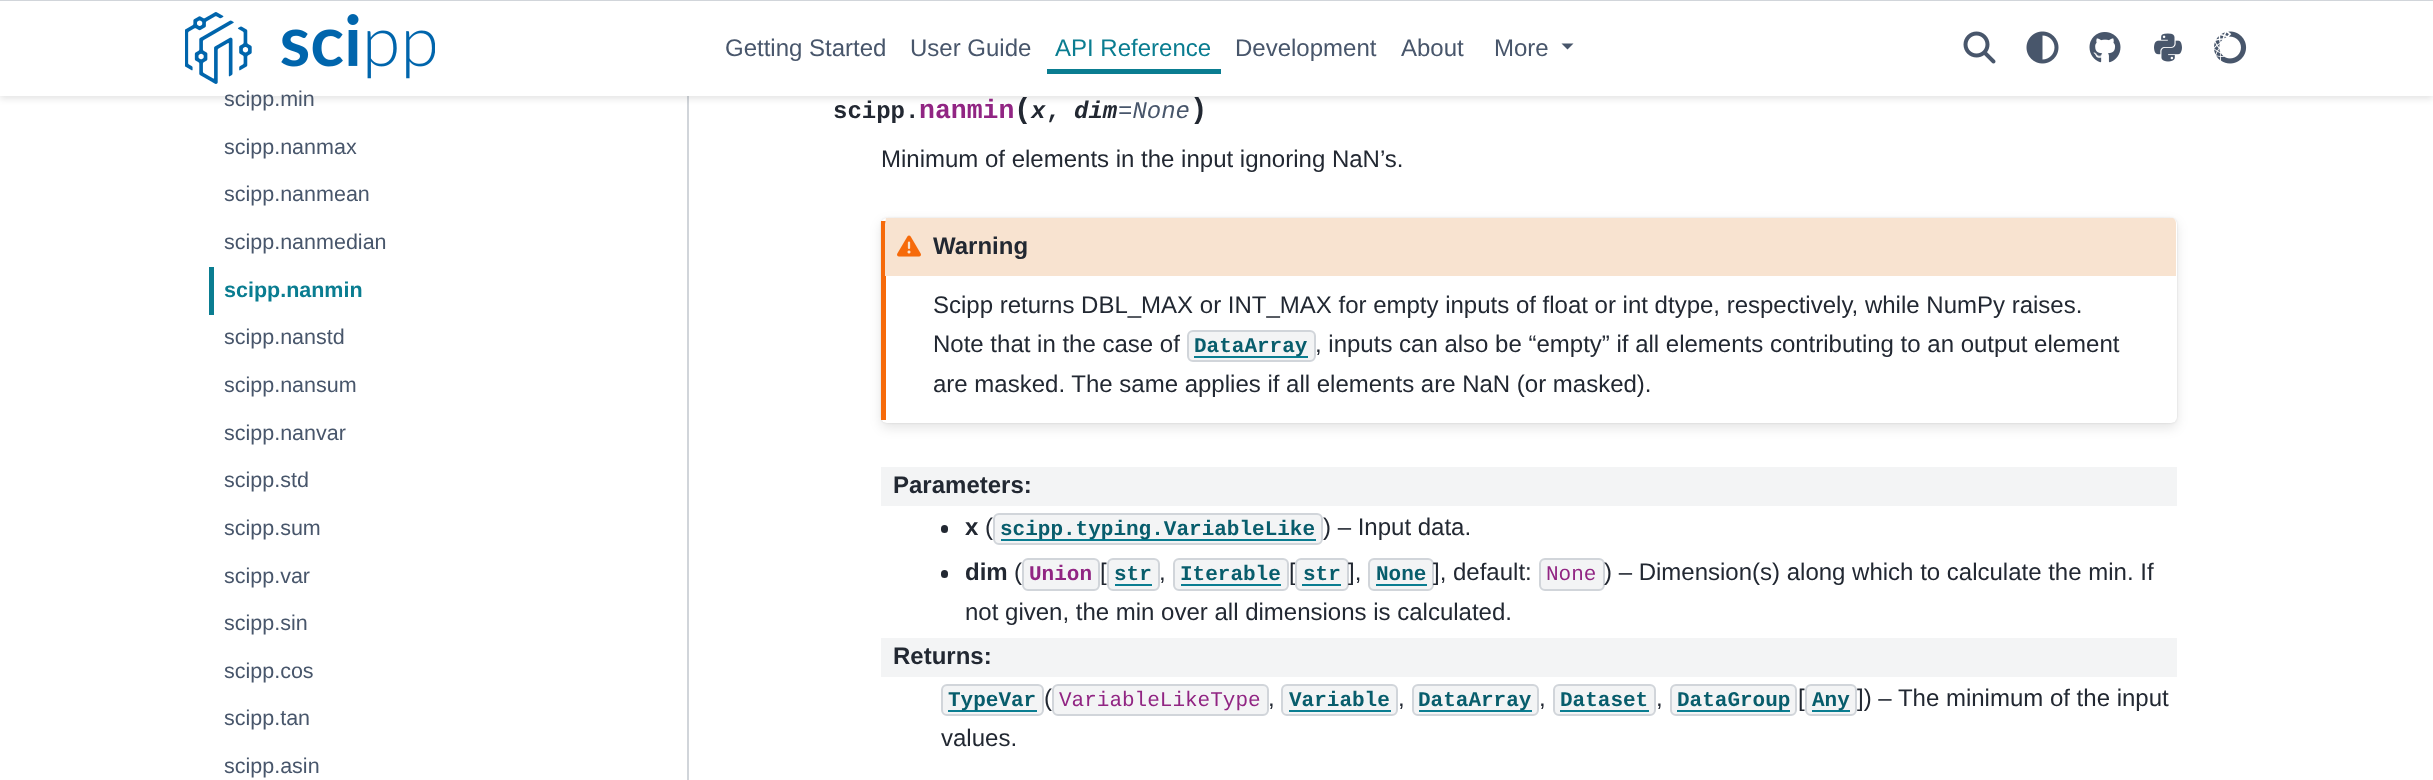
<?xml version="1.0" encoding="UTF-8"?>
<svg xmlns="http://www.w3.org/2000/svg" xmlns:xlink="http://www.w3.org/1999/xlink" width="2433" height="780">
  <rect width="100%" height="100%" fill="#ffffff" />
  <rect x="687" y="96" width="2" height="684" fill="#d1d5da" />
  <rect y="3" width="2433" height="96" fill="#000000" fill-opacity="0.1" filter="blur(3px)" />
  <rect width="2433" height="1" fill="#d1d5da" />
  <rect y="1" width="2433" height="95" fill="#ffffff" />
  <image x="185" y="12" width="250" height="72" xlink:href="image1.png" />
  <rect x="1047" y="69" width="174" height="5" fill="#0a7d91" />
  <path d="M 1561.5 43.5 h 12 l -6 6 z" fill="#48566b" />
  <image x="1963" y="31" width="33" height="33" xlink:href="image2.png" />
  <image x="2026" y="31" width="33" height="33" xlink:href="image3.png" />
  <image x="2089" y="32" width="32" height="31" xlink:href="image4.png" />
  <image x="2154" y="33" width="28" height="29" xlink:href="image5.png" />
  <image x="2214" y="31" width="33" height="33" xlink:href="image6.png" />
  <rect x="209" y="267" width="5" height="48" fill="#0a7d91" />
  <rect x="881" y="218" width="1296" height="205" rx="6" fill="#000000" fill-opacity="0.1" filter="blur(1px)" />
  <rect x="881" y="222" width="1296" height="206" rx="6" fill="#000000" fill-opacity="0.1" filter="blur(6px)" />
  <rect x="881" y="218" width="1296" height="205" rx="6" fill="#ffffff" />
  <rect x="881" y="221" width="5" height="199" fill="#f66a0a" />
  <path d="M 885 224 v 52 h 1291 v -52 c 0 -3 -1 -5 -3 -6 h -1287 z" fill="#f8e3d0" />
  <image x="897" y="235" width="24" height="22" xlink:href="image7.png" />
  <rect x="1188" y="331" width="127" height="30" rx="5" fill="#f3f4f5" stroke="#d1d5da" stroke-width="2" />
  <rect x="1194" y="356" width="114" height="2" fill="#0a7d91" />
  <rect x="881" y="467" width="1296" height="39" fill="#f3f4f5" />
  <rect x="941" y="525" width="7" height="8" rx="3.5" fill="#222832" />
  <rect x="994" y="514" width="328" height="30" rx="5" fill="#f3f4f5" stroke="#d1d5da" stroke-width="2" />
  <rect x="1001" y="539" width="315" height="2" fill="#0a7d91" />
  <rect x="941" y="570" width="7" height="8" rx="3.5" fill="#222832" />
  <rect x="1023" y="559" width="76" height="31" rx="5" fill="#f3f4f5" stroke="#d1d5da" stroke-width="2" />
  <rect x="1108" y="559" width="51" height="31" rx="5" fill="#f3f4f5" stroke="#d1d5da" stroke-width="2" />
  <rect x="1115" y="584" width="37" height="2" fill="#0a7d91" />
  <rect x="1174" y="559" width="114" height="31" rx="5" fill="#f3f4f5" stroke="#d1d5da" stroke-width="2" />
  <rect x="1181" y="584" width="100" height="2" fill="#0a7d91" />
  <rect x="1369" y="559" width="64" height="31" rx="5" fill="#f3f4f5" stroke="#d1d5da" stroke-width="2" />
  <rect x="1376" y="584" width="51" height="2" fill="#0a7d91" />
  <rect x="1540" y="559" width="64" height="31" rx="5" fill="#f3f4f5" stroke="#d1d5da" stroke-width="2" />
  <rect x="881" y="638" width="1296" height="39" fill="#f3f4f5" />
  <rect x="942" y="685" width="101" height="30" rx="5" fill="#f3f4f5" stroke="#d1d5da" stroke-width="2" />
  <rect x="948" y="710" width="89" height="2" fill="#0a7d91" />
  <rect x="1053" y="685" width="215" height="30" rx="5" fill="#f3f4f5" stroke="#d1d5da" stroke-width="2" />
  <rect x="1282" y="685" width="115" height="30" rx="5" fill="#f3f4f5" stroke="#d1d5da" stroke-width="2" />
  <rect x="1289" y="710" width="102" height="2" fill="#0a7d91" />
  <rect x="1413" y="685" width="125" height="30" rx="5" fill="#f3f4f5" stroke="#d1d5da" stroke-width="2" />
  <rect x="1419" y="710" width="113" height="2" fill="#0a7d91" />
  <rect x="1554" y="685" width="101" height="30" rx="5" fill="#f3f4f5" stroke="#d1d5da" stroke-width="2" />
  <rect x="1560" y="710" width="89" height="2" fill="#0a7d91" />
  <rect x="1671" y="685" width="125" height="30" rx="5" fill="#f3f4f5" stroke="#d1d5da" stroke-width="2" />
  <rect x="1677" y="710" width="113" height="2" fill="#0a7d91" />
  <rect x="1806" y="685" width="50" height="30" rx="5" fill="#f3f4f5" stroke="#d1d5da" stroke-width="2" />
  <rect x="1812" y="710" width="38" height="2" fill="#0a7d91" />
  <text x="725" y="56" style="font-family: Liberation Sans; font-size: 24px; fill: #48566b">Getting Started</text>
  <text x="910" y="56" style="font-family: Liberation Sans; font-size: 24px; fill: #48566b">User Guide</text>
  <text x="1055" y="56" style="font-family: Liberation Sans; font-size: 24px; fill: #0a7d91">API Reference</text>
  <text x="1235" y="56" style="font-family: Liberation Sans; font-size: 24px; fill: #48566b">Development</text>
  <text x="1401" y="56" style="font-family: Liberation Sans; font-size: 24px; fill: #48566b">About</text>
  <text x="1494" y="56" style="font-family: Liberation Sans; font-size: 24px; fill: #48566b">More</text>
  <text x="224" y="106" style="font-family: Liberation Sans; font-size: 21.5px; fill: #48566b">scipp.min</text>
  <text x="224" y="154" style="font-family: Liberation Sans; font-size: 21.5px; fill: #48566b">scipp.nanmax</text>
  <text x="224" y="201" style="font-family: Liberation Sans; font-size: 21.5px; fill: #48566b">scipp.nanmean</text>
  <text x="224" y="249" style="font-family: Liberation Sans; font-size: 21.5px; fill: #48566b">scipp.nanmedian</text>
  <text x="224" y="297" style="font-family: Liberation Sans; font-size: 21.5px; font-weight: bold; fill: #0a7d91">scipp.nanmin</text>
  <text x="224" y="344" style="font-family: Liberation Sans; font-size: 21.5px; fill: #48566b">scipp.nanstd</text>
  <text x="224" y="392" style="font-family: Liberation Sans; font-size: 21.5px; fill: #48566b">scipp.nansum</text>
  <text x="224" y="440" style="font-family: Liberation Sans; font-size: 21.5px; fill: #48566b">scipp.nanvar</text>
  <text x="224" y="487" style="font-family: Liberation Sans; font-size: 21.5px; fill: #48566b">scipp.std</text>
  <text x="224" y="535" style="font-family: Liberation Sans; font-size: 21.5px; fill: #48566b">scipp.sum</text>
  <text x="224" y="583" style="font-family: Liberation Sans; font-size: 21.5px; fill: #48566b">scipp.var</text>
  <text x="224" y="630" style="font-family: Liberation Sans; font-size: 21.5px; fill: #48566b">scipp.sin</text>
  <text x="224" y="678" style="font-family: Liberation Sans; font-size: 21.5px; fill: #48566b">scipp.cos</text>
  <text x="224" y="725" style="font-family: Liberation Sans; font-size: 21.5px; fill: #48566b">scipp.tan</text>
  <text x="224" y="773" style="font-family: Liberation Sans; font-size: 21.5px; fill: #48566b">scipp.asin</text>
  <text x="833" y="118" style="font-family: Liberation Mono; font-size: 24px; font-weight: bold; fill: #222832">scipp.</text>
  <text x="919" y="118" style="font-family: Liberation Mono; font-size: 26.5px; font-weight: bold; fill: #912583">nanmin</text>
  <text x="1014" y="118" style="font-family: Liberation Mono; font-size: 29px; font-weight: bold; fill: #222832">(</text>
  <text x="1031" y="118" style="font-family: Liberation Mono; font-size: 24px; font-weight: bold; font-style: italic; fill: #222832">x</text>
  <text x="1046" y="118" style="font-family: Liberation Mono; font-size: 24px; font-weight: bold; fill: #222832">,</text>
  <text x="1074" y="118" style="font-family: Liberation Mono; font-size: 24px; font-weight: bold; font-style: italic; fill: #222832">dim</text>
  <text x="1118" y="118" style="font-family: Liberation Mono; font-size: 24px; font-style: italic; fill: #48566b">=None</text>
  <text x="1190" y="118" style="font-family: Liberation Mono; font-size: 29px; font-weight: bold; fill: #222832">)</text>
  <text x="881" y="167" style="font-family: Liberation Sans; font-size: 24px; fill: #222832">Minimum of elements in the input ignoring NaN’s.</text>
  <text x="933" y="254" style="font-family: Liberation Sans; font-size: 24px; font-weight: bold; fill: #222832">Warning</text>
  <text x="933" y="313" style="font-family: Liberation Sans; font-size: 24px; fill: #222832">Scipp returns DBL_MAX or INT_MAX for empty inputs of float or int dtype, respectively, while NumPy raises.</text>
  <text x="933" y="352" style="font-family: Liberation Sans; font-size: 24px; fill: #222832">Note that in the case of</text>
  <text x="1194" y="352" style="font-family: Liberation Mono; font-size: 21px; font-weight: bold; fill: #085d6c">DataArray</text>
  <text x="1315" y="352" style="font-family: Liberation Sans; font-size: 24px; fill: #222832">, inputs can also be “empty” if all elements contributing to an output element</text>
  <text x="933" y="392" style="font-family: Liberation Sans; font-size: 24px; fill: #222832">are masked. The same applies if all elements are NaN (or masked).</text>
  <text x="893" y="493" style="font-family: Liberation Sans; font-size: 24px; font-weight: bold; fill: #222832">Parameters:</text>
  <text x="965" y="535" style="font-family: Liberation Sans; font-size: 24px; font-weight: bold; fill: #222832">x</text>
  <text x="985" y="535" style="font-family: Liberation Sans; font-size: 24px; fill: #222832">(</text>
  <text x="1000" y="535" style="font-family: Liberation Mono; font-size: 21px; font-weight: bold; fill: #085d6c">scipp.typing.VariableLike</text>
  <text x="1323" y="535" style="font-family: Liberation Sans; font-size: 24px; fill: #222832">) – Input data.</text>
  <text x="965" y="580" style="font-family: Liberation Sans; font-size: 24px; font-weight: bold; fill: #222832">dim</text>
  <text x="1014" y="580" style="font-family: Liberation Sans; font-size: 24px; fill: #222832">(</text>
  <text x="1029" y="580" style="font-family: Liberation Mono; font-size: 21px; font-weight: bold; fill: #912583">Union</text>
  <text x="1100" y="580" style="font-family: Liberation Sans; font-size: 24px; fill: #222832">[</text>
  <text x="1114" y="580" style="font-family: Liberation Mono; font-size: 21px; font-weight: bold; fill: #085d6c">str</text>
  <text x="1159" y="580" style="font-family: Liberation Sans; font-size: 24px; fill: #222832">,</text>
  <text x="1180" y="580" style="font-family: Liberation Mono; font-size: 21px; font-weight: bold; fill: #085d6c">Iterable</text>
  <text x="1289" y="580" style="font-family: Liberation Sans; font-size: 24px; fill: #222832">[</text>
  <rect x="1296" y="559" width="52" height="31" rx="5" fill="#f3f4f5" stroke="#d1d5da" stroke-width="2" />
  <text x="1303" y="580" style="font-family: Liberation Mono; font-size: 21px; font-weight: bold; fill: #085d6c">str</text>
  <rect x="1302" y="584" width="39" height="2" fill="#0a7d91" />
  <text x="1348" y="580" style="font-family: Liberation Sans; font-size: 24px; fill: #222832">],</text>
  <text x="1376" y="580" style="font-family: Liberation Mono; font-size: 21px; font-weight: bold; fill: #085d6c">None</text>
  <text x="1433" y="580" style="font-family: Liberation Sans; font-size: 24px; fill: #222832">], default:</text>
  <text x="1546" y="580" style="font-family: Liberation Mono; font-size: 21px; fill: #912583">None</text>
  <text x="1604" y="580" style="font-family: Liberation Sans; font-size: 24px; fill: #222832">) – Dimension(s) along which to calculate the min. If</text>
  <text x="965" y="620" style="font-family: Liberation Sans; font-size: 24px; fill: #222832">not given, the min over all dimensions is calculated.</text>
  <text x="893" y="664" style="font-family: Liberation Sans; font-size: 24px; font-weight: bold; fill: #222832">Returns:</text>
  <text x="948" y="706" style="font-family: Liberation Mono; font-size: 21px; font-weight: bold; fill: #085d6c">TypeVar</text>
  <text x="1044" y="706" style="font-family: Liberation Sans; font-size: 24px; fill: #222832">(</text>
  <text x="1059" y="706" style="font-family: Liberation Mono; font-size: 21px; fill: #912583">VariableLikeType</text>
  <text x="1268" y="706" style="font-family: Liberation Sans; font-size: 24px; fill: #222832">,</text>
  <text x="1289" y="706" style="font-family: Liberation Mono; font-size: 21px; font-weight: bold; fill: #085d6c">Variable</text>
  <text x="1398" y="706" style="font-family: Liberation Sans; font-size: 24px; fill: #222832">,</text>
  <text x="1418" y="706" style="font-family: Liberation Mono; font-size: 21px; font-weight: bold; fill: #085d6c">DataArray</text>
  <text x="1539" y="706" style="font-family: Liberation Sans; font-size: 24px; fill: #222832">,</text>
  <text x="1560" y="706" style="font-family: Liberation Mono; font-size: 21px; font-weight: bold; fill: #085d6c">Dataset</text>
  <text x="1656" y="706" style="font-family: Liberation Sans; font-size: 24px; fill: #222832">,</text>
  <text x="1677" y="706" style="font-family: Liberation Mono; font-size: 21px; font-weight: bold; fill: #085d6c">DataGroup</text>
  <text x="1798" y="706" style="font-family: Liberation Sans; font-size: 24px; fill: #222832">[</text>
  <text x="1812" y="706" style="font-family: Liberation Mono; font-size: 21px; font-weight: bold; fill: #085d6c">Any</text>
  <text x="1857" y="706" style="font-family: Liberation Sans; font-size: 24px; fill: #222832">]) – The minimum of the input</text>
  <text x="941" y="746" style="font-family: Liberation Sans; font-size: 24px; fill: #222832">values.</text>
</svg>
